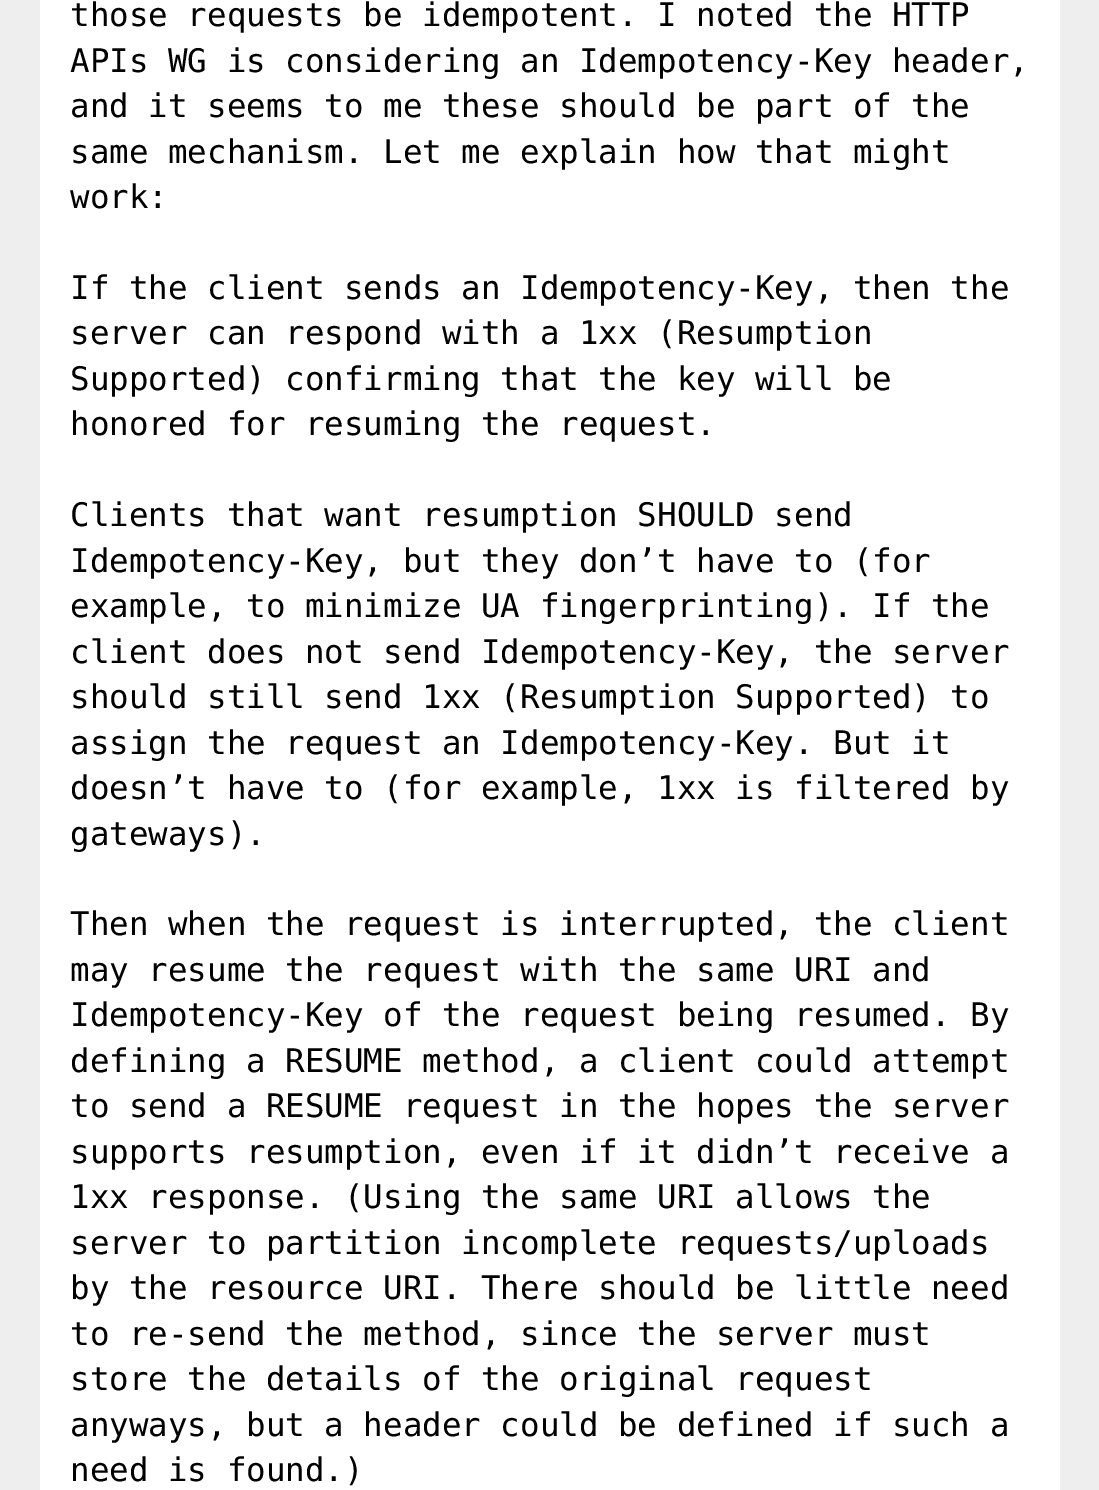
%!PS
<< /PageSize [1099 1490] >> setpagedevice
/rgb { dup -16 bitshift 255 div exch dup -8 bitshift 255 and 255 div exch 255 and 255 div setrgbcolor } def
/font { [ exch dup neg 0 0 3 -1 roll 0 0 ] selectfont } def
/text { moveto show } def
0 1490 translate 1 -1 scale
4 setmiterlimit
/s1 { /DejaVuSansMono-Regular 32.5 font 16#000000 rgb } def
16#EEEEEE rgb
0 0 1099 1490 rectfill
16#FFFFFF rgb
40 0 1020 1490 rectfill
s1
(those requests be idempotent. I noted the HTTP) 70 26 text
(APIs WG is considering an Idempotency-Key header,) 70 72 text
(and it seems to me these should be part of the) 70 117 text
(same mechanism. Let me explain how that might) 70 163 text
(work:) 70 208 text
(If the client sends an Idempotency-Key, then the) 70 299 text
(server can respond with a 1xx \(Resumption) 70 344 text
(Supported\) confirming that the key will be) 70 390 text
(honored for resuming the request.) 70 435 text
(Clients that want resumption SHOULD send) 70 526 text
(Idempotency-Key, but they don’t have to \(for) 70 572 text
(example, to minimize UA fingerprinting\). If the) 70 617 text
(client does not send Idempotency-Key, the server) 70 663 text
(should still send 1xx \(Resumption Supported\) to) 70 708 text
(assign the request an Idempotency-Key. But it) 70 754 text
(doesn’t have to \(for example, 1xx is filtered by) 70 799 text
(gateways\).) 70 845 text
(Then when the request is interrupted, the client) 70 935 text
(may resume the request with the same URI and) 70 981 text
(Idempotency-Key of the request being resumed. By) 70 1026 text
(defining a RESUME method, a client could attempt) 70 1072 text
(to send a RESUME request in the hopes the server) 70 1117 text
(supports resumption, even if it didn’t receive a) 70 1163 text
(1xx response. \(Using the same URI allows the) 70 1208 text
(server to partition incomplete requests/uploads) 70 1254 text
(by the resource URI. There should be little need) 70 1299 text
(to re-send the method, since the server must) 70 1345 text
(store the details of the original request) 70 1390 text
(anyways, but a header could be defined if such a) 70 1436 text
(need is found.\)) 70 1481 text
showpage
